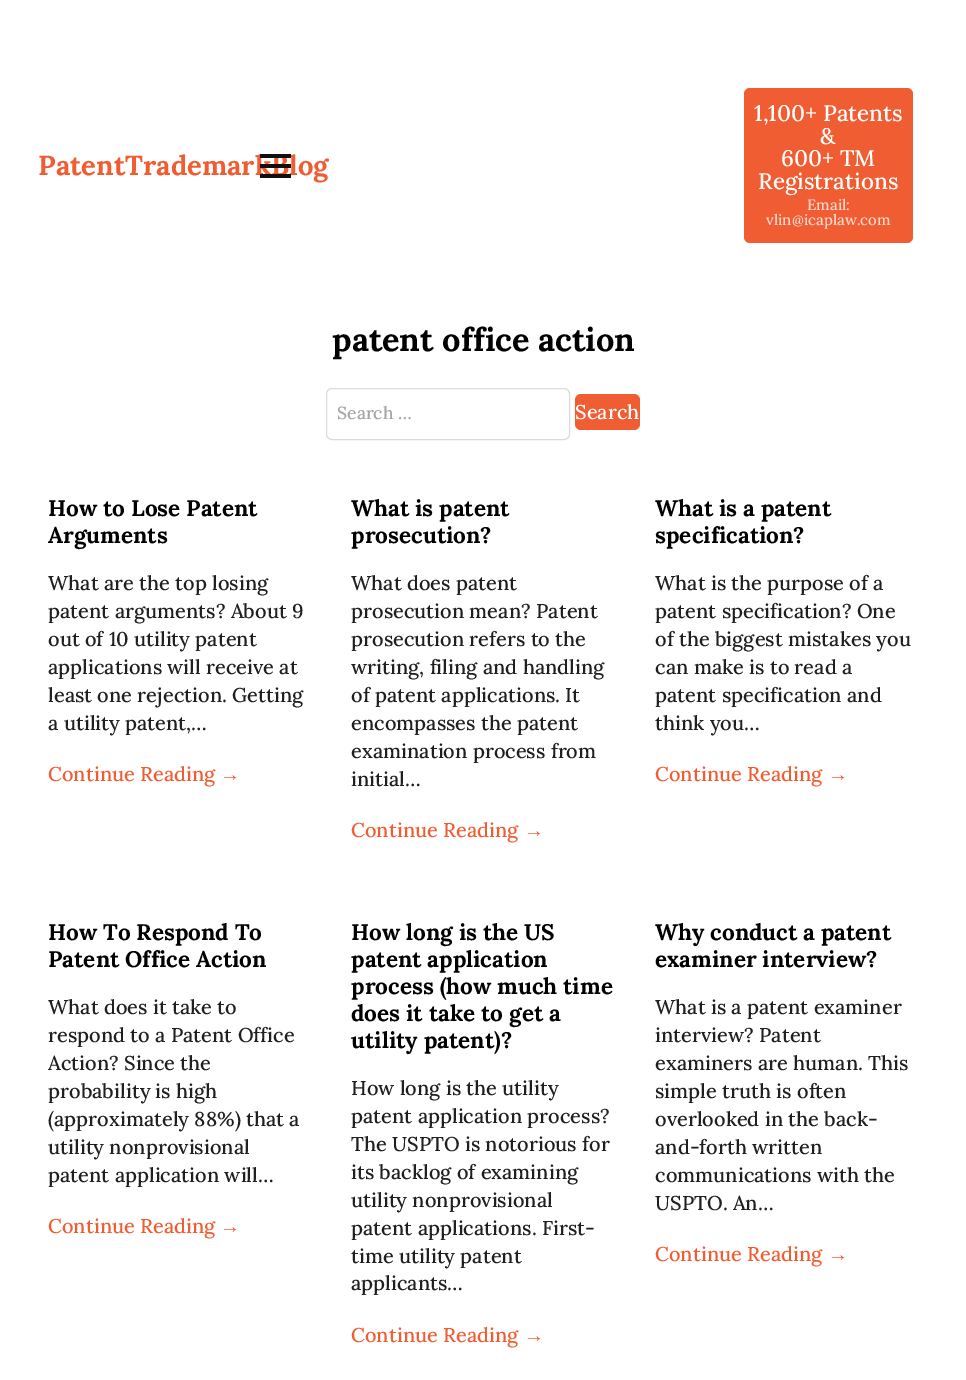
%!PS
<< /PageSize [966 1380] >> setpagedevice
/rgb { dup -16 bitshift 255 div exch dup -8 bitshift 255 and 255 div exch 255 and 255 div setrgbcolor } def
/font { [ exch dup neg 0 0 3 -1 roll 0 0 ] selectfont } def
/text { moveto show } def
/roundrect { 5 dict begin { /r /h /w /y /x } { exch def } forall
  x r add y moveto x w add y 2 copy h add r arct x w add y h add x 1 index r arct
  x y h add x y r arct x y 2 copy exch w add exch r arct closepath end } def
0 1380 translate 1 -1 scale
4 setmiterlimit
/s1 { /Lora-Bold 27.5 font 16#F15D32 rgb } def
/s2 { /Lora-Medium 22.5 font 16#FFFFFF rgb } def
/s3 { /Lora-Medium 15 font 16#FCD7CC rgb } def
/s4 { /Lora-Bold 32.5 font 16#000000 rgb } def
/s5 { /Lora-Medium 17.5 font 16#A4A4A4 rgb } def
/s6 { /Lora-Medium 20 font 16#FFFFFF rgb } def
/s7 { /Lora-Bold 22.5 font 16#000000 rgb } def
/s8 { /Lora-Medium 20 font 16#1F1F1F rgb } def
/s9 { /Lora-Medium 20 font 16#F15D32 rgb } def
/s10 { /LiberationSerif-Regular 20 font 16#F15D32 rgb } def
16#FFFFFF rgb
0 0 966 1380 rectfill
s1
(PatentTrademarkBlog) 38 175 text
744 88 169 155 6 roundrect fill
s2
(1,100+ Patents) 754 121 text
(&) 820 144 text
(600+ TM) 781 166 text
(Registrations) 758 189 text
s3
(Email:) 807 210 text
(vlin@icaplaw.com) 766 225 text
16#101010 rgb
260 154 31 4 rectfill
260 164 31 4 rectfill
260 174 31 4 rectfill
s4
(patent office action) 332 351 text
16#DBDBDB rgb
326.5 388.5 243 51 5.5 roundrect stroke
s5
(Search …) 337 419 text
16#F15D32 rgb
575 394 65 36 6 roundrect fill
s6
(Search) 575 419 text
s7
(How to Lose Patent) 48 516 text
(Arguments) 48 543 text
s8
(What are the top losing) 48 590 text
(patent arguments? About 9) 48 618 text
(out of 10 utility patent) 48 646 text
(applications will receive at) 48 674 text
(least one rejection. Getting) 48 702 text
(a utility patent,…) 48 730 text
s9
(Continue Reading) 48 781 text
s10
(→) 220 781 text
s7
(What is patent) 351 516 text
(prosecution?) 351 543 text
s8
(What does patent) 351 590 text
(prosecution mean? Patent) 351 618 text
(prosecution refers to the) 351 646 text
(writing, filing and handling) 351 674 text
(of patent applications. It) 351 702 text
(encompasses the patent) 351 730 text
(examination process from) 351 758 text
(initial…) 351 786 text
s9
(Continue Reading) 351 837 text
s10
(→) 524 837 text
s7
(What is a patent) 655 516 text
(specification?) 655 543 text
s8
(What is the purpose of a) 655 590 text
(patent specification? One) 655 618 text
(of the biggest mistakes you) 655 646 text
(can make is to read a) 655 674 text
(patent specification and) 655 702 text
(think you…) 655 730 text
s9
(Continue Reading) 655 781 text
s10
(→) 828 781 text
s7
(How To Respond To) 48 940 text
(Patent Office Action) 48 967 text
s8
(What does it take to) 48 1014 text
(respond to a Patent Office) 48 1042 text
(Action? Since the) 48 1070 text
(probability is high) 48 1098 text
(\(approximately 88%\) that a) 48 1126 text
(utility nonprovisional) 48 1154 text
(patent application will…) 48 1182 text
s9
(Continue Reading) 48 1233 text
s10
(→) 220 1233 text
s7
(How long is the US) 351 940 text
(patent application) 351 967 text
(process \(how much time) 351 994 text
(does it take to get a) 351 1021 text
(utility patent\)?) 351 1048 text
s8
(How long is the utility) 351 1095 text
(patent application process?) 351 1123 text
(The USPTO is notorious for) 351 1151 text
(its backlog of examining) 351 1179 text
(utility nonprovisional) 351 1207 text
(patent applications. First-) 351 1235 text
(time utility patent) 351 1263 text
(applicants…) 351 1290 text
s9
(Continue Reading) 351 1342 text
s10
(→) 524 1342 text
s7
(Why conduct a patent) 655 940 text
(examiner interview?) 655 967 text
s8
(What is a patent examiner) 655 1014 text
(interview? Patent) 655 1042 text
(examiners are human. This) 655 1070 text
(simple truth is often) 655 1098 text
(overlooked in the back-) 655 1126 text
(and-forth written) 655 1154 text
(communications with the) 655 1182 text
(USPTO. An…) 655 1210 text
s9
(Continue Reading) 655 1261 text
s10
(→) 828 1261 text
showpage
